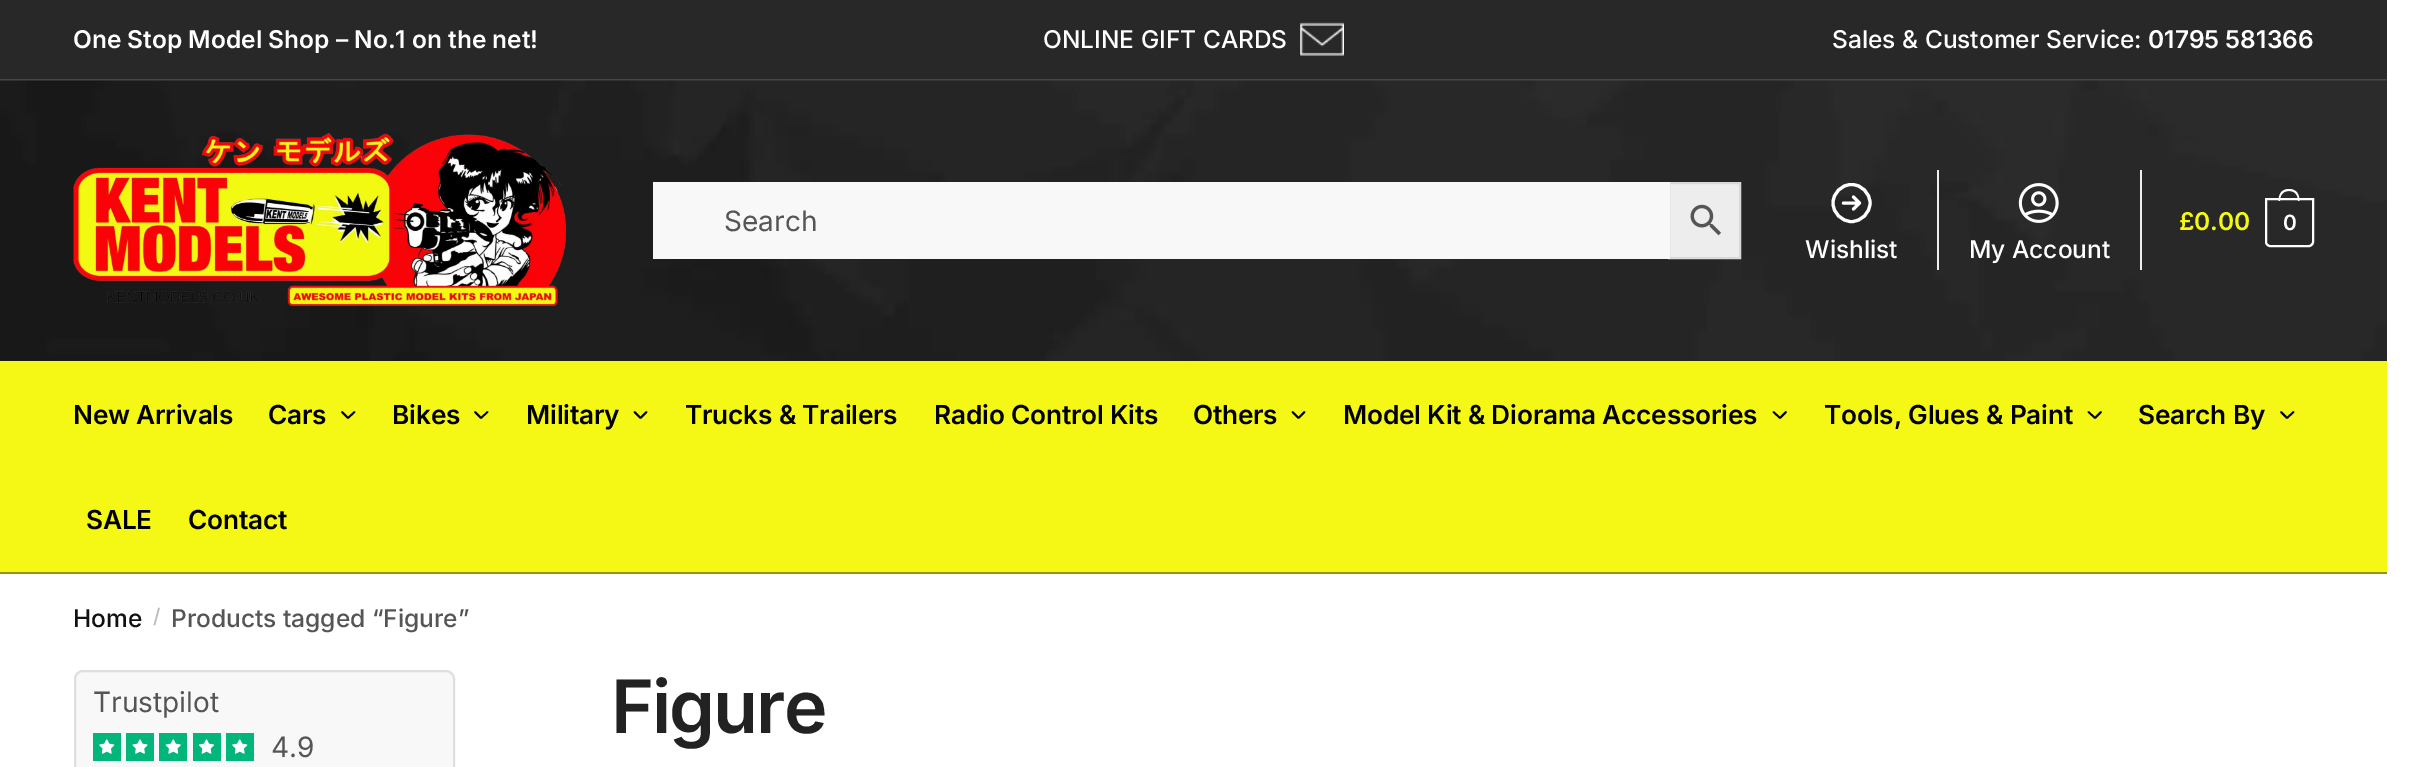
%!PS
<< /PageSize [2412 767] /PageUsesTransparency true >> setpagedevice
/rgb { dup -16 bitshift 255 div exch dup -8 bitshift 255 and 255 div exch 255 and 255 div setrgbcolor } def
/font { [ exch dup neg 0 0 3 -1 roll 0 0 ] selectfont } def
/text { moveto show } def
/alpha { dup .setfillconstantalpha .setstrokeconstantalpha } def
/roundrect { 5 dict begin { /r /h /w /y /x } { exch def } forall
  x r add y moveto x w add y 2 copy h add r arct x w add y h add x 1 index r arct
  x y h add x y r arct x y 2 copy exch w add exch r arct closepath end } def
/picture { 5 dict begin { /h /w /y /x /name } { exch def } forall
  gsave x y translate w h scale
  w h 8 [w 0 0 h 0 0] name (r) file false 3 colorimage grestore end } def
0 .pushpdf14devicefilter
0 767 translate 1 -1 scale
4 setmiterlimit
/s1 { /Inter-SemiBold 24.5 font 16#FFFFFF rgb } def
/s2 { /Inter-Medium 24.5 font 16#FFFFFF rgb } def
/s3 { /Inter-Regular 28 font 16#555555 rgb } def
/s4 { /Inter-Medium 24.5 font 16#111111 rgb } def
/s5 { /Inter-Medium 20 font 16#BBBBBB rgb } def
/s6 { /Inter-Medium 24.5 font 16#555555 rgb } def
16#FFFFFF rgb
0 0 2412 767 rectfill
16#282828 rgb
0 0 2387 79 rectfill
16#464646 rgb
0 79 2387 2 rectfill
s1
(One Stop Model Shop – No.1 on the net!) 73 48 text
s2
(ONLINE GIFT CARDS) 1043 48 text
(pic1.raw) 1300 22 44 34 picture
(Sales & Customer Service:) 1832 48 text
s1
(01795 581366) 2148 48 text
16#222222 rgb
0 360 2387 1 rectfill
(pic2.raw) 0 80 2387 281 picture
(pic3.raw) 73 133 493 174 picture
16#EDEDED rgb
1669 183 moveto 1740 183 lineto 1740 258 lineto 1669 258 lineto closepath gsave fill grestore
16#D8D8D8 rgb
2 setlinewidth
stroke
16#F8F8F8 rgb
653 182 1017 77 rectfill
s3
(Search) 724 231 text
(pic4.raw) 1690 204 31 32 picture
/Inter-SemiBold 24.5 font
16#F5F815 rgb
2179 230 moveto -0.2 0 (£0.00) ashow
16#FFFFFF rgb
2266 199 moveto 2313 199 lineto 2313 242 lineto 2313 244 2311 246 2309 246 curveto 2270 246 lineto 2268 246 2266 244 2266 242 curveto closepath stroke
2289 189 moveto 2296.5 189 2299.5 194.5 2299.5 201 curveto 2278.5 201 lineto 2278.5 194.5 2281.5 189 2289 189 curveto closepath 2289 191 moveto 2295.5 191 2298 195.5 2298 201 curveto 2280 201 lineto 2280 195.5 2282.5 191 2289 191 curveto closepath eofill
/Inter-SemiBold 21 font
2283 230 moveto -1 0 (0) ashow
3.1 setlinewidth
1 setlinecap
1 setlinejoin
1853.5 197 moveto 1859.5 203 lineto 1859.5 203 moveto 1853.5 209 lineto 1859.5 203 moveto 1843.5 203 lineto 1870 203 moveto 1870 213 1861.5 221.5 1851.5 221.5 curveto 1841.5 221.5 1833 213 1833 203 curveto 1833 193 1841.5 184.5 1851.5 184.5 curveto 1861.5 184.5 1870 193 1870 203 curveto closepath stroke
s2
(Wishlist) 1805 258 text
16#EEEEEE rgb
2140 170 2 100 rectfill
1937 170 2 100 rectfill
(pic5.raw) 2018 183 41 40 picture
s2
(My Account) 1969 258 text
16#F5F815 rgb
0 361 2387 211 rectfill
16#93950D rgb
0 572 2387 2 rectfill
/Inter-SemiBold 26.25 font
16#000000 rgb
73 424 moveto -0.2 0 (New Arrivals) ashow
268 424 moveto -0.2 0 (Cars) ashow
1.8 setlinewidth
354.5 412 moveto 348 418 lineto 342 412 lineto stroke
392 424 moveto -0.2 0 (Bikes) ashow
487.5 412 moveto 481 418 lineto 475 412 lineto stroke
526 424 moveto -0.2 0 (Military) ashow
646.5 412 moveto 640.5 418 lineto 634.5 412 lineto stroke
685 424 moveto -0.2 0 (Trucks & Trailers) ashow
934 424 moveto -0.2 0 (Radio Control Kits) ashow
1193 424 moveto -0.2 0 (Others) ashow
1304.5 412 moveto 1298.5 418 lineto 1292.5 412 lineto stroke
1343 424 moveto -0.2 0 (Model Kit & Diorama Accessories) ashow
1786 412 moveto 1780 418 lineto 1773.5 412 lineto stroke
1824 424 moveto -0.2 0 (Tools, Glues & Paint) ashow
2101 412 moveto 2095 418 lineto 2088.5 412 lineto stroke
2138 424 moveto -0.2 0 (Search By) ashow
2293.5 412 moveto 2287 418 lineto 2281 412 lineto stroke
86 529 moveto -0.2 0 (SALE) ashow
188 529 moveto -0.2 0 (Contact) ashow
s4
(Home) 73 627 text
s5
(/) 153 623 text
s6
(Products tagged “Figure”) 171 627 text
16#F8F8F8 rgb
74 670 381 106 9 roundrect fill
0.1 alpha
16#000000 rgb
2 setlinewidth
0 setlinecap
0 setlinejoin
75 671 379 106 8 roundrect stroke
1 alpha
s3
(Trustpilot) 93 712 text
16#00B67A rgb
93 733 28 28 rectfill
(pic6.raw) 99 739 16 15 picture
126 733 28 28 rectfill
(pic7.raw) 132 739 16 15 picture
159 733 28 28 rectfill
(pic8.raw) 165 739 16 15 picture
193 733 28 28 rectfill
(pic9.raw) 199 739 15 15 picture
226 733 28 28 rectfill
(pic6.raw) 232 739 16 15 picture
s3
(4.9) 271 757 text
/Inter-SemiBold 73.5 font
16#222222 rgb
611 733 moveto -2 0 (Figure) ashow
.poppdf14devicefilter showpage
